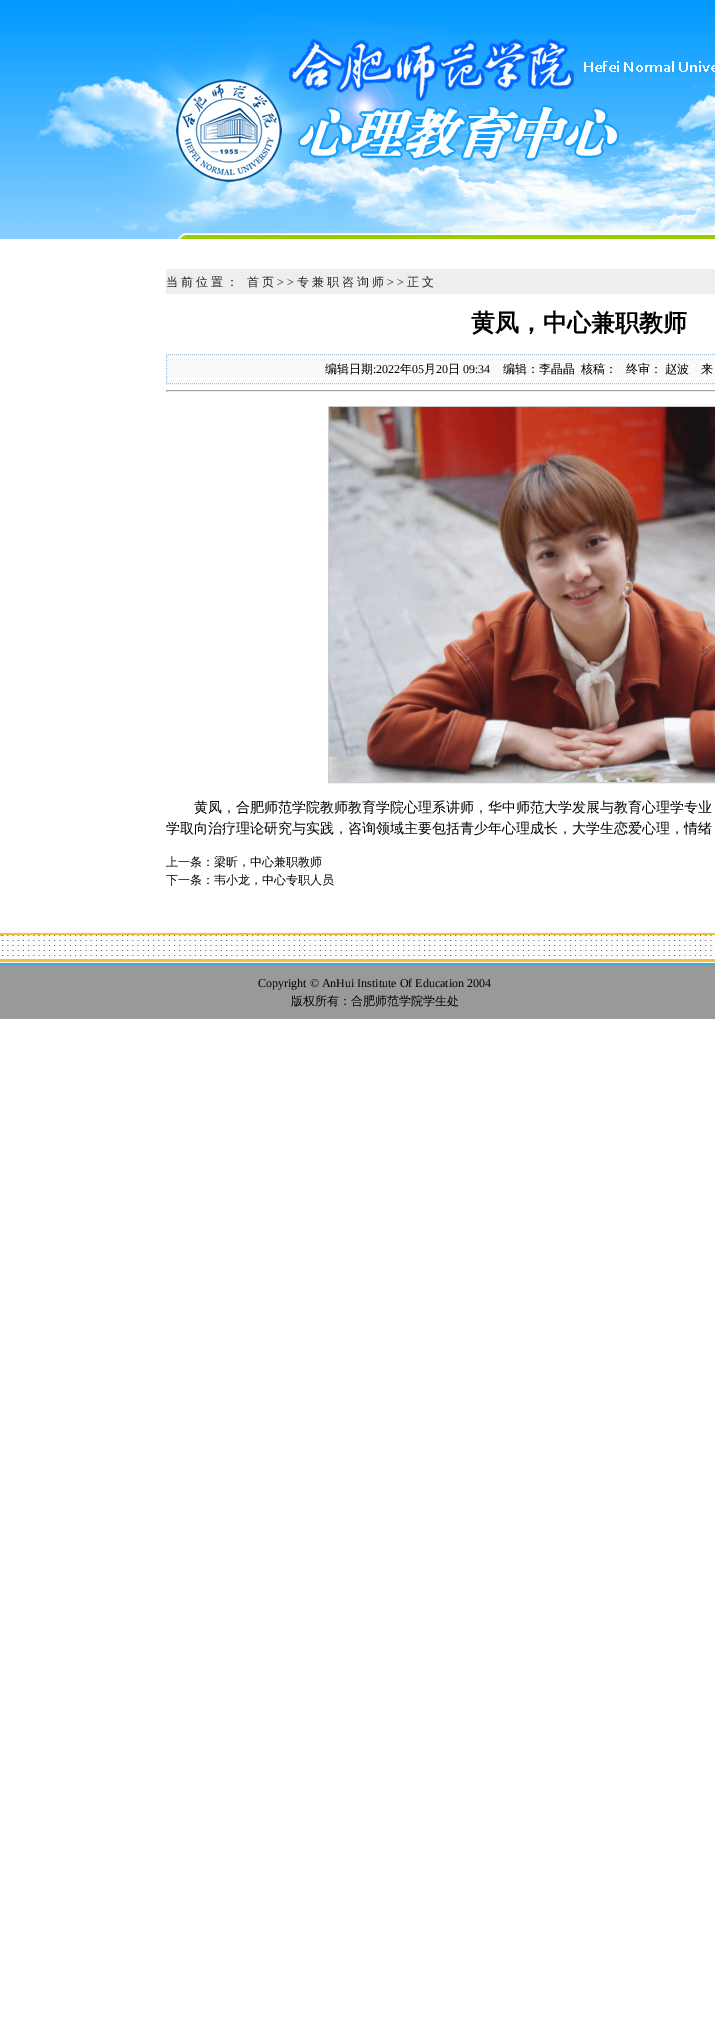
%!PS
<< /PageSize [715 2044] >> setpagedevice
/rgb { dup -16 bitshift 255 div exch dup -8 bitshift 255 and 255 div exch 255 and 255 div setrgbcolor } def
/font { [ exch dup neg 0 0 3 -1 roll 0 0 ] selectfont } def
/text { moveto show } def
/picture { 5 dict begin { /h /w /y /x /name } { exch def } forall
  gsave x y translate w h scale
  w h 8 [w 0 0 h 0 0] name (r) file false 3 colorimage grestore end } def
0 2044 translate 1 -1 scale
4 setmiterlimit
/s1 { /WenQuanYiZenHei-Bold 24 font 16#000000 rgb } def
/s2 { /WenQuanYiZenHei-Medium 12 font 16#000000 rgb } def
/s3 { /LiberationSerif-Regular 12 font 16#000000 rgb } def
/s4 { /WenQuanYiZenHei-Medium 14 font 16#000000 rgb } def
16#FFFFFF rgb
0 0 715 2044 rectfill
(pic1.raw) 0 0 649 239 picture
(pic2.raw) 649 0 66 239 picture
16#EEEEEE rgb
166 269 549 25 rectfill
/WenQuanYiZenHei-Medium 12 font
16#222222 rgb
166 286 moveto 3 0 (当前位置：) ashow
247 286 moveto 3 0 (首页) ashow
/LiberationSerif-Regular 12 font
277 286 moveto 3 0 (>>) ashow
/WenQuanYiZenHei-Medium 12 font
297 286 moveto 3 0 (专兼职咨询师) ashow
/LiberationSerif-Regular 12 font
387 286 moveto 3 0 (>>) ashow
/WenQuanYiZenHei-Medium 12 font
407 286 moveto 3 0 (正文) ashow
s1
(黄凤，中心兼职教师) 471 331 text
16#FAFAFA rgb
166 354 549 30 rectfill
16#A4C2D7 rgb
[1 1] 0 setdash
166 354.5 moveto 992 354.5 lineto stroke
166 383.5 moveto 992 383.5 lineto stroke
166.5 354 moveto 166.5 384 lineto stroke
s2
(编辑日期) 325 373 text
s3
(:2022) 373 373 text
s2
(年) 400 373 text
s3
(05) 412 373 text
s2
(月) 424 373 text
s3
(20) 436 373 text
s2
(日) 448 373 text
s3
(09:34) 463 373 text
s2
(编辑：李晶晶) 503 373 text
(核稿：) 581 373 text
(终审：) 626 373 text
(赵波) 665 373 text
(来) 701 373 text
16#9F9F9F rgb
166 390 549 1 rectfill
16#EEEEEE rgb
166 391 549 1 rectfill
16#9F9F9F rgb
166 390 1 2 rectfill
16#CCCCCC rgb
[] 0 setdash
328.5 406.5 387 376 rectstroke
(pic3.raw) 329 407 386 375 picture
s4
(黄凤，合肥师范学院教师教育学院心理系讲师，华中师范大学发展与教育心理学专业) 194 812 text
(学取向治疗理论研究与实践，咨询领域主要包括青少年心理成长，大学生恋爱心理，情绪) 166 833 text
s2
(上一条：梁昕，中心兼职教师) 166 866 text
(下一条：韦小龙，中心专职人员) 166 884 text
(pic4.raw) 0 932 715 31 picture
16#42A7D2 rgb
0 963 715 2 rectfill
16#999999 rgb
0 965 715 54 rectfill
s3
(Copyright © AnHui Institute Of Education 2004) 258 987 text
s2
(版权所有：合肥师范学院学生处) 291 1005 text
showpage
